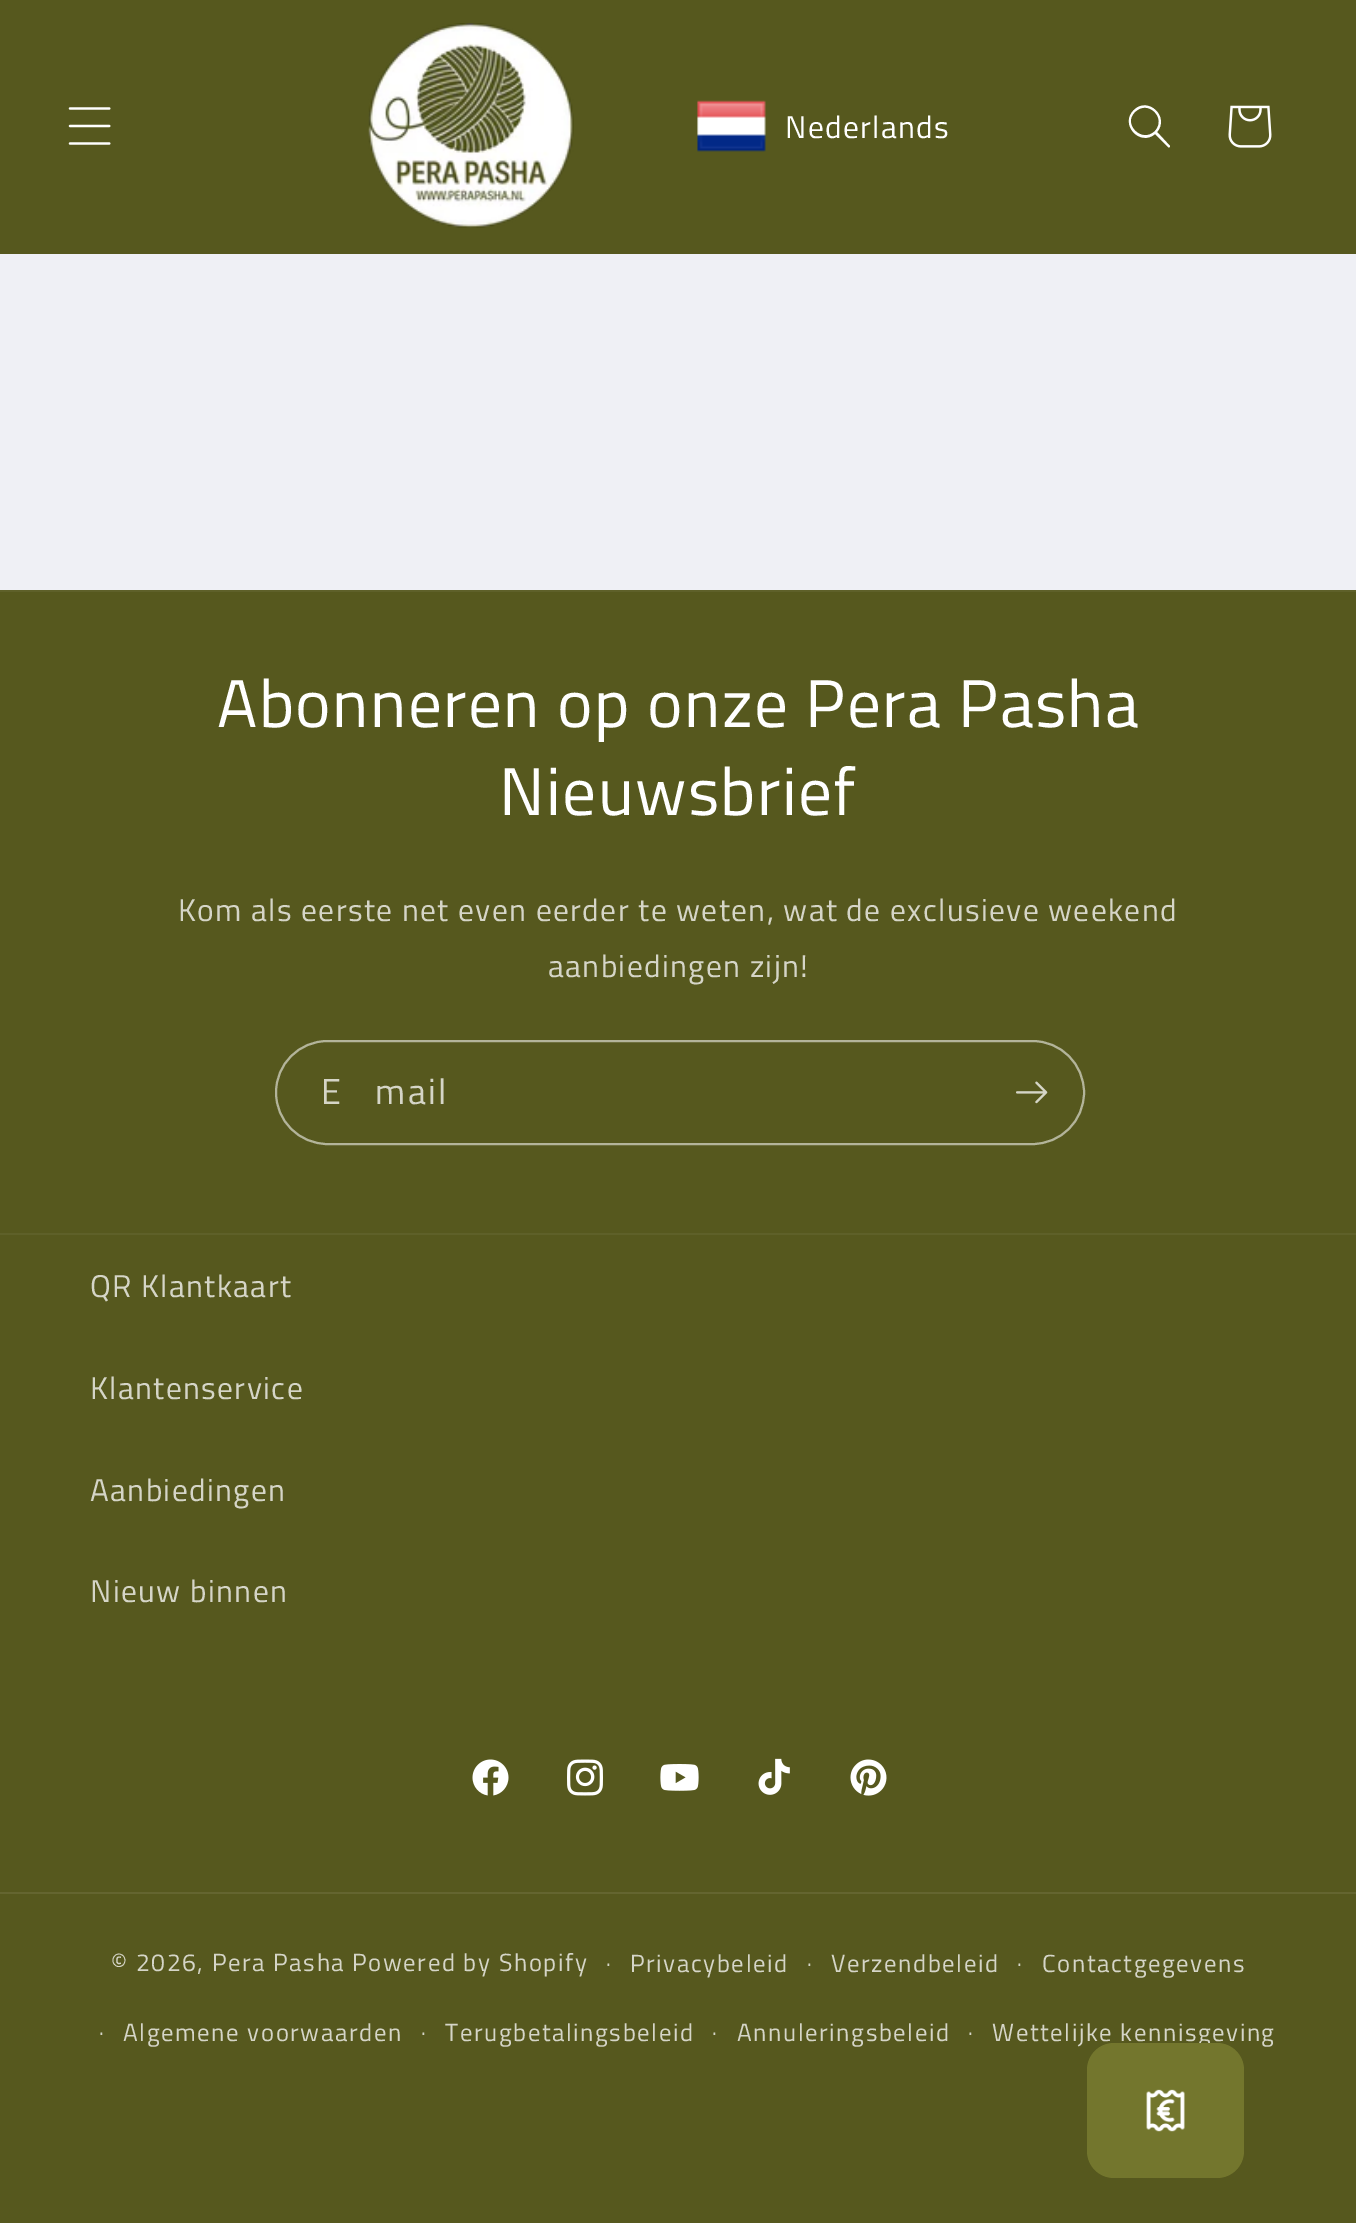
%!PS
<< /PageSize [1356 2223] >> setpagedevice
/rgb { dup -16 bitshift 255 div exch dup -8 bitshift 255 and 255 div exch 255 and 255 div setrgbcolor } def
/font { [ exch dup neg 0 0 3 -1 roll 0 0 ] selectfont } def
/roundrect { 5 dict begin { /r /h /w /y /x } { exch def } forall
  x r add y moveto x w add y 2 copy h add r arct x w add y h add x 1 index r arct
  x y h add x y r arct x y 2 copy exch w add exch r arct closepath end } def
/picture { 5 dict begin { /h /w /y /x /name } { exch def } forall
  gsave x y translate w h scale
  w h 8 [w 0 0 h 0 0] name (r) file false 3 colorimage grestore end } def
0 2223 translate 1 -1 scale
4 setmiterlimit
16#EFF0F5 rgb
0 0 1356 2223 rectfill
16#56581E rgb
0 0 1356 254 rectfill
(pic1.raw) 68 107 43 38 picture
(pic2.raw) 368 23 206 205 picture
(pic3.raw) 697 100 69 52 picture
/TitilliumWeb-Regular 31.5 font
16#FFFFFF rgb
785 138 moveto 1.35 0 (Nederlands) ashow
1155 131 moveto 1142 144 1122 124 1135 112 curveto 1148 99 1167 118 1155 131 curveto 1155 134 moveto 1140 147 1119 124 1134 110 curveto 1148 96 1170 117 1157 132 curveto 1170 146 lineto 1170 147 1169 148 1168 147 curveto closepath eofill
(pic4.raw) 1228 105 44 43 picture
16#56581E rgb
0 592 1356 641 rectfill
16#5E6029 rgb
0 590 1356 2 rectfill
0 1233 1356 2 rectfill
/TitilliumWeb-Regular 67.5 font
16#FFFFFF rgb
217 727 moveto 1.35 0 (Abonneren op onze Pera Pasha) ashow
499 815 moveto 1.35 0 (Nieuwsbrief) ashow
/TitilliumWeb-Regular 31.5 font
16#D5D5C7 rgb
178 921 moveto 1.35 0 (Kom als eerste net even eerder te weten, wat de exclusieve weekend) ashow
548 977 moveto 1.35 0 (aanbiedingen zijn!) ashow
16#B3B49A rgb
2 setlinewidth
276 1041 808 103 51.5 roundrect stroke
/TitilliumWeb-Regular 36 font
16#D5D5C7 rgb
321 1104 moveto 2.25 0 (E‑mail) ashow
(pic5.raw) 1016 1081 32 23 picture
16#56581E rgb
0 1235 1356 988 rectfill
/TitilliumWeb-Regular 31.5 font
16#D5D5C7 rgb
90 1297 moveto 1.35 0 (QR Klantkaart) ashow
90 1399 moveto 1.35 0 (Klantenservice) ashow
90 1501 moveto 1.35 0 (Aanbiedingen) ashow
90 1602 moveto 1.35 0 (Nieuw binnen) ashow
(pic6.raw) 472 1759 37 37 picture
(pic7.raw) 567 1759 36 37 picture
(pic8.raw) 660 1764 39 27 picture
(pic9.raw) 758 1758 32 37 picture
(pic10.raw) 850 1759 37 37 picture
16#646530 rgb
0 1892 1356 2 rectfill
/TitilliumWeb-Regular 24.75 font
16#D5D5C7 rgb
111 1971 moveto 1.6 0 (© 2026, Pera Pasha) ashow
352 1971 moveto 1.6 0 (Powered by Shopify) ashow
/TitilliumWeb-Regular 22 font
606 1971 moveto 1.6 0 (·) ashow
/TitilliumWeb-Regular 24.75 font
630 1972 moveto 1.6 0 (Privacybeleid) ashow
/TitilliumWeb-Regular 22 font
807 1971 moveto 1.6 0 (·) ashow
/TitilliumWeb-Regular 24.75 font
831 1972 moveto 1.6 0 (Verzendbeleid) ashow
/TitilliumWeb-Regular 22 font
1017 1971 moveto 1.6 0 (·) ashow
/TitilliumWeb-Regular 24.75 font
1042 1972 moveto 1.6 0 (Contactgegevens) ashow
/TitilliumWeb-Regular 22 font
99 2040 moveto 1.6 0 (·) ashow
/TitilliumWeb-Regular 24.75 font
123 2041 moveto 1.6 0 (Algemene voorwaarden) ashow
/TitilliumWeb-Regular 22 font
421 2040 moveto 1.6 0 (·) ashow
/TitilliumWeb-Regular 24.75 font
445 2041 moveto 1.6 0 (Terugbetalingsbeleid) ashow
/TitilliumWeb-Regular 22 font
712 2040 moveto 1.6 0 (·) ashow
/TitilliumWeb-Regular 24.75 font
737 2041 moveto 1.6 0 (Annuleringsbeleid) ashow
/TitilliumWeb-Regular 22 font
968 2040 moveto 1.6 0 (·) ashow
/TitilliumWeb-Regular 24.75 font
992 2041 moveto 1.6 0 (Wettelijke kennisgeving) ashow
16#73762D rgb
1087 2043 157 135 27 roundrect fill
(pic11.raw) 1146 2089 39 43 picture
showpage
